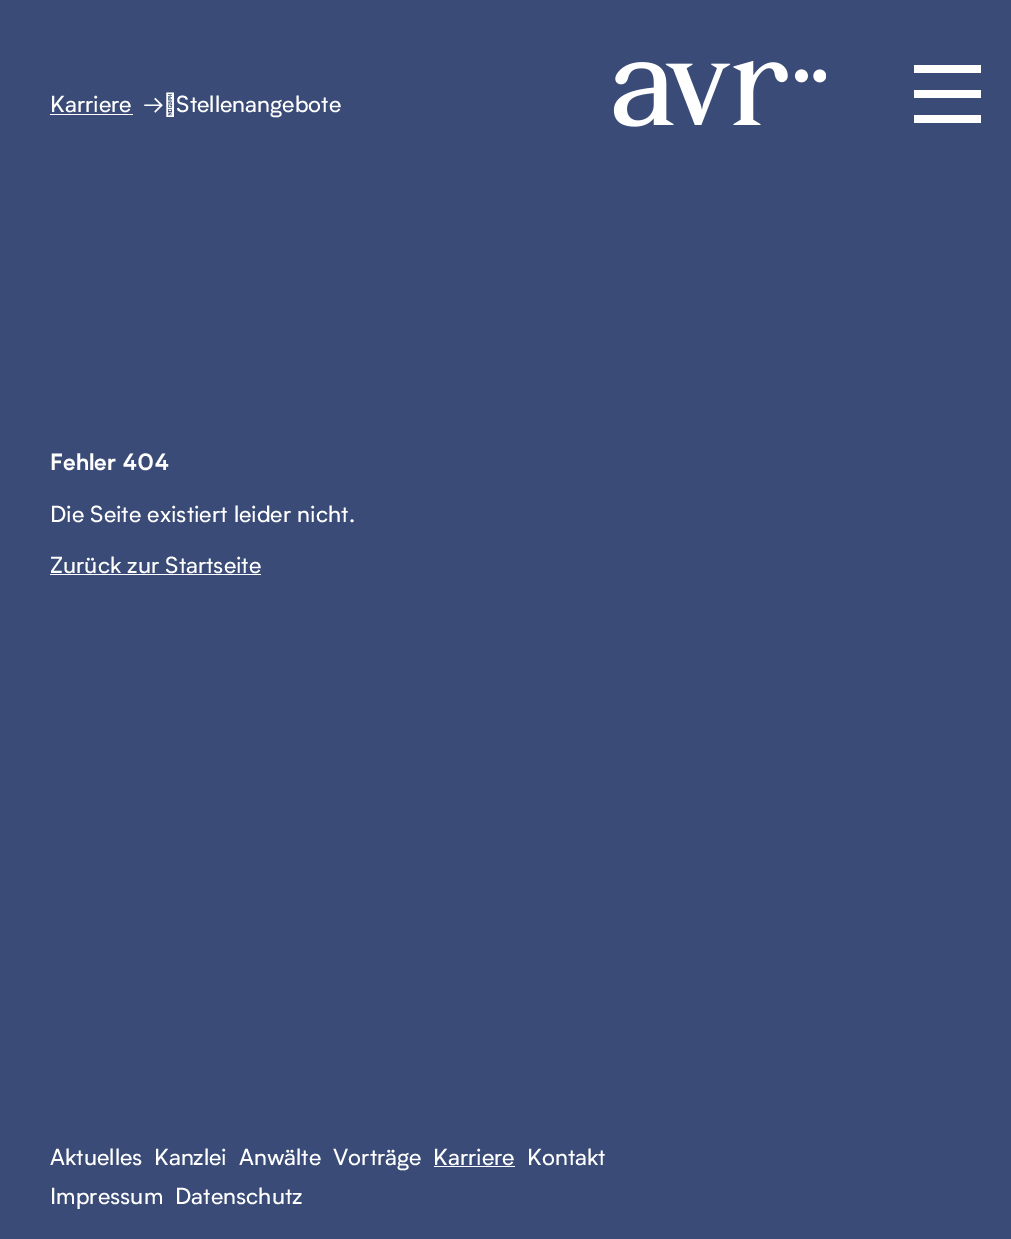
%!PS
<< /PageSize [1011 1239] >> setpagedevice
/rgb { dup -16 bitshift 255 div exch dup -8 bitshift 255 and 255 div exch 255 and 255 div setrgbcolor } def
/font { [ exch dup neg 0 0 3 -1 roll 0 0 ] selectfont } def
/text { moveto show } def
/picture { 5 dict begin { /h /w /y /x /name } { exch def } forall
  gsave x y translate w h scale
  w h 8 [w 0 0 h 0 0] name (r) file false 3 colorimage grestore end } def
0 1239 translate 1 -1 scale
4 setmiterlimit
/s1 { /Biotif-Regular 22.5 font 16#FFFFFF rgb } def
/s2 { /Biotif-Bold 22.5 font 16#FFFFFF rgb } def
16#394B76 rgb
0 0 1011 1239 rectfill
s1
(Karriere) 50 112 text
50 114 83 1 rectfill
(→ Stellenangebote) 143 112 text
(pic1.raw) 613 60 213 67 picture
914 65 67 8 rectfill
914 90 67 8 rectfill
914 115 67 8 rectfill
s2
(Fehler 404) 50 470 text
s1
(Die Seite existiert leider nicht.) 50 522 text
(Zurück zur Startseite) 50 573 text
50 574 211 1 rectfill
(Aktuelles) 50 1165 text
(Kanzlei) 154 1165 text
(Anwälte) 239 1165 text
(Vorträge) 333 1165 text
(Karriere) 433 1165 text
434 1166 81 1 rectfill
(Kontakt) 527 1165 text
(Impressum) 50 1204 text
(Datenschutz) 175 1204 text
showpage
